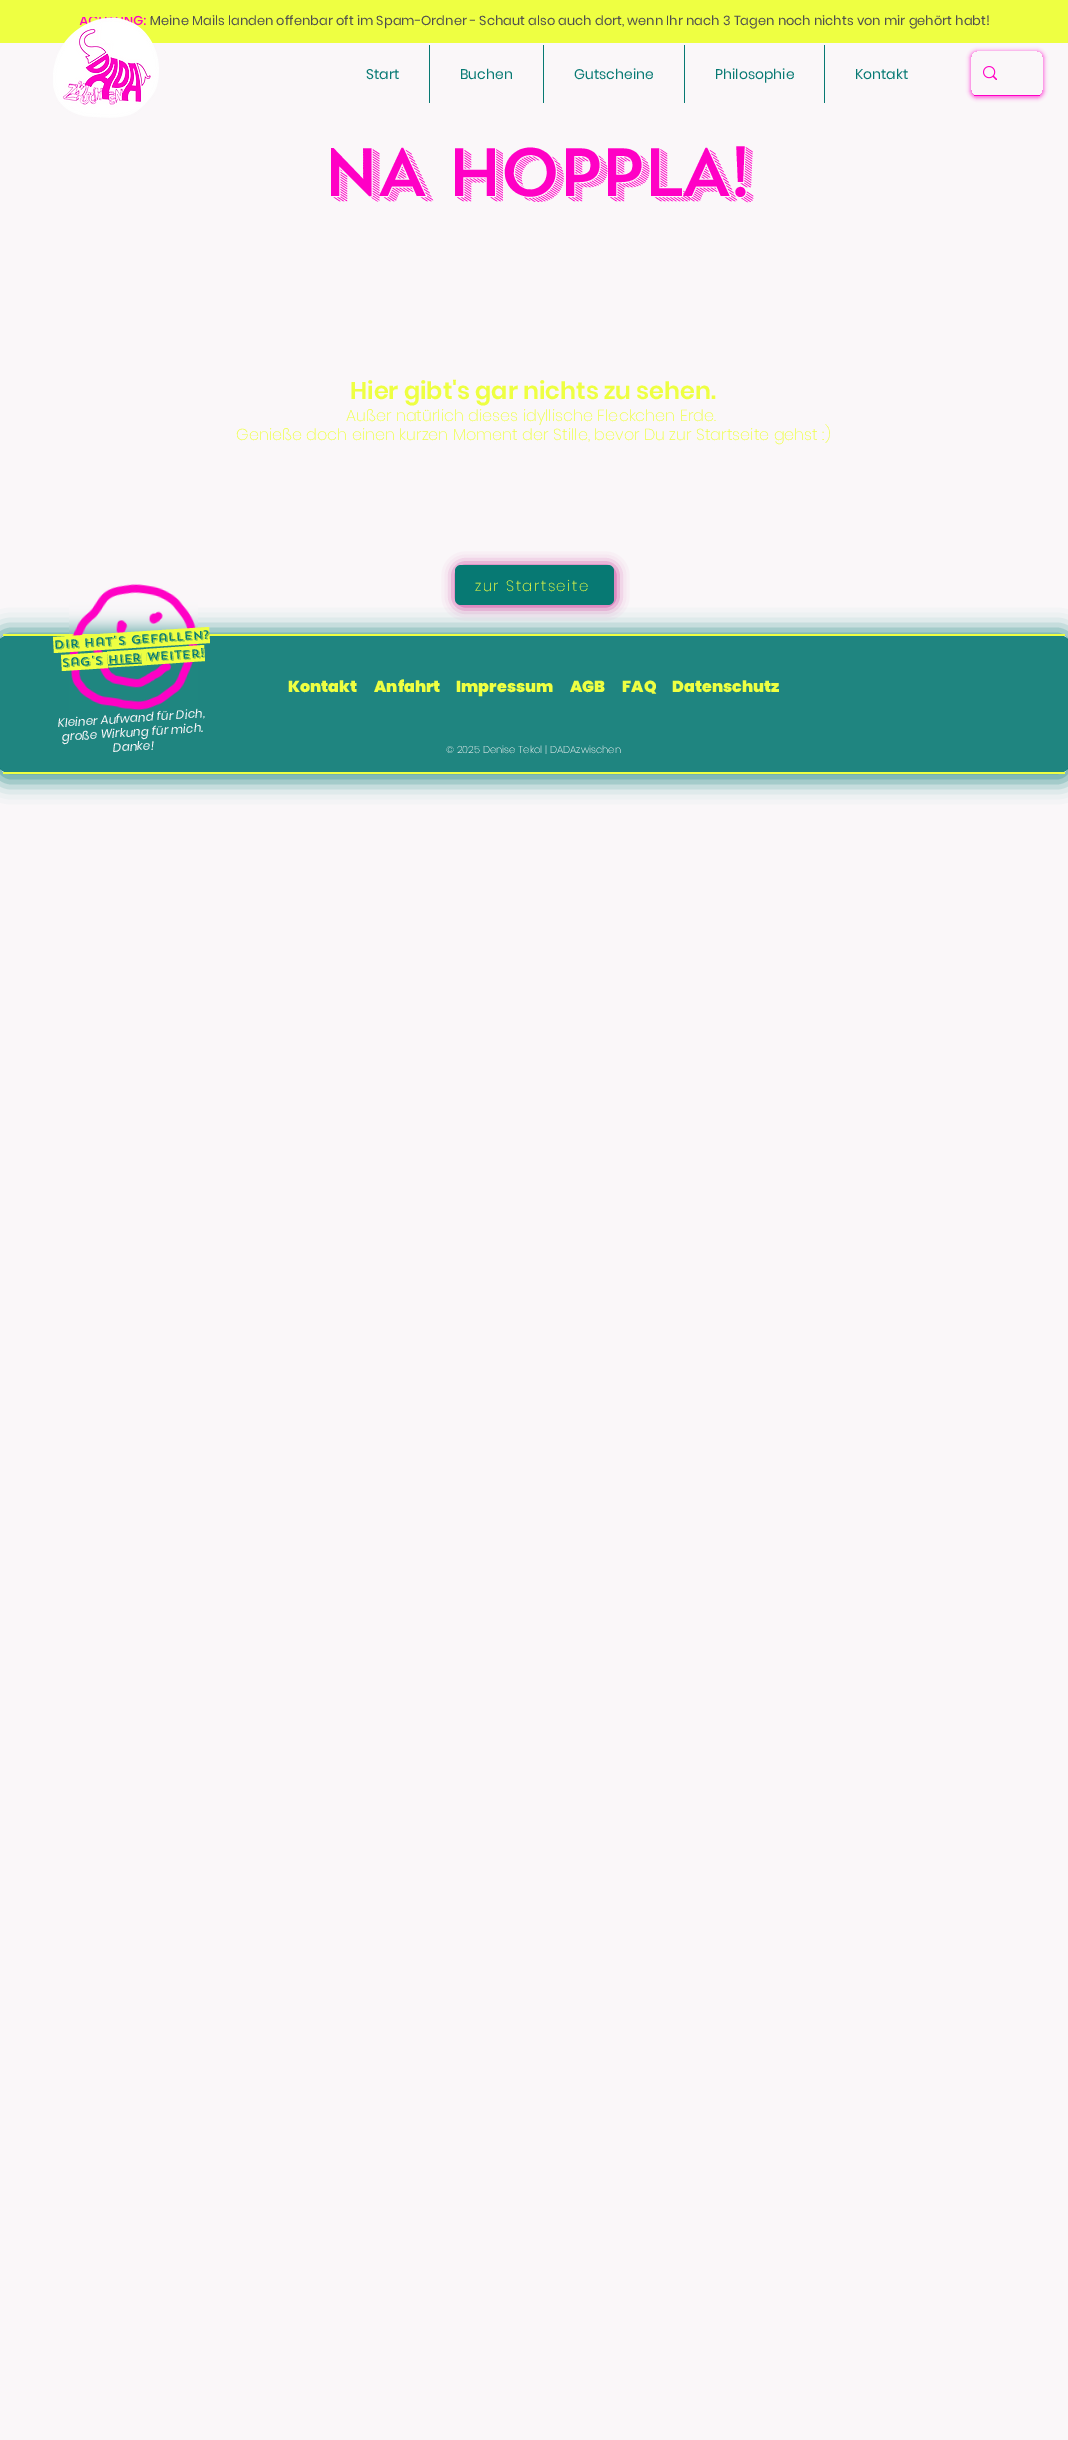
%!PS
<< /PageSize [1068 2440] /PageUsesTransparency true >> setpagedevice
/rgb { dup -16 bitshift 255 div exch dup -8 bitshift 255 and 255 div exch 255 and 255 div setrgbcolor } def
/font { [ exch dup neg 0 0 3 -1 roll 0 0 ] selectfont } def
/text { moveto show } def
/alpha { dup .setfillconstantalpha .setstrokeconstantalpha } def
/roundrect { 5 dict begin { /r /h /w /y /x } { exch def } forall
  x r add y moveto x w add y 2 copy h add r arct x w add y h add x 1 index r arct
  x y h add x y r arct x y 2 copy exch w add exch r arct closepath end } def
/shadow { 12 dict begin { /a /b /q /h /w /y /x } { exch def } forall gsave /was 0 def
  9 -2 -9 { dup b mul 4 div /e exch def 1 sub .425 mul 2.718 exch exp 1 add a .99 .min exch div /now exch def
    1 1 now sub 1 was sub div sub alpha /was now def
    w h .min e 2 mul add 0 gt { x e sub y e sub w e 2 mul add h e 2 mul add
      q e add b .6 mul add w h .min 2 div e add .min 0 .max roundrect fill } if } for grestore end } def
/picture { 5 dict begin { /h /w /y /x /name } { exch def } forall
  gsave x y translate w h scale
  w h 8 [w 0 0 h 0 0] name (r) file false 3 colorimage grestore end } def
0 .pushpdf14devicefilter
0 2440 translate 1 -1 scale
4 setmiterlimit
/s1 { /Poppins-Medium 13 font 16#FF00C5 rgb } def
/s2 { /Poppins-Regular 13 font 16#4F4E4F rgb } def
/s3 { /Poppins-Regular 14 font 16#077973 rgb } def
/s4 { /Poppins-SemiBold 24 font 16#EEFF42 rgb } def
/s5 { /Poppins-ExtraLight 16 font 16#EEFF42 rgb } def
/s6 { /Poppins-Black 16 font 16#EEFF42 rgb } def
/s7 { /Poppins-ExtraLight 10 font 16#FAF7F9 rgb } def
16#FAF7F9 rgb
0 0 1068 2440 rectfill
16#EEFF42 rgb
0 0 1068 43 rectfill
s1
(G:) 133 25 text
s2
(Meine Mails landen offenbar oft im Spam-Ordner - Schaut also auch dort, wenn Ihr nach 3 Tagen noch nichts von mir gehört habt!) 150 25 text
(pic1.raw) 53 17 106 101 picture
s3
(Start) 366 79 text
429 45 1 58 rectfill
(Buchen) 460 79 text
543 45 1 58 rectfill
(Gutscheine) 574 79 text
684 45 1 58 rectfill
(Philosophie) 715 79 text
824 45 1 58 rectfill
(Kontakt) 855 79 text
gsave
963 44 moveto 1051 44 lineto 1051 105 lineto 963 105 lineto closepath 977 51 moveto 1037 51 lineto 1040.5 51 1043 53.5 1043 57 curveto 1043 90 lineto 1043 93.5 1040.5 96 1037 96 curveto 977 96 lineto 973.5 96 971 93.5 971 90 curveto 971 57 lineto 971 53.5 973.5 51 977 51 curveto closepath eoclip newpath
16#FF00C5 rgb
970 51 74 47 7 2 0.6 shadow
grestore
16#FF00C5 rgb
974 95 66 1 rectfill
(pic2.raw) 983 66 14 14 picture
/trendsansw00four-Medium 68 font
321 196 moveto -6.75 0 (NA HOPPLA!) ashow
s4
(Hier gibt's gar nichts zu sehen.) 350 399 text
s5
(Außer natürlich dieses idyllische Fleckchen Erde.) 346 421 text
(Genieße doch einen kurzen Moment der Stille, bevor Du zur Startseite gehst :\)) 236 440 text
16#BF1A88 rgb
456 566 159 40 6 6.5 1 shadow
16#077973 rgb
455 565 159 40 6 roundrect fill
/Poppins-ExtraLight 15 font
16#EEFF42 rgb
475 591 moveto 1.5 0 (zur Startseite) ashow
gsave
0 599 moveto 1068 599 lineto 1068 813 lineto 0 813 lineto closepath 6 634 moveto 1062 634 lineto 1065.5 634 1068 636.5 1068 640 curveto 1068 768 lineto 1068 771.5 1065.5 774 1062 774 curveto 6 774 lineto 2.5 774 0 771.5 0 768 curveto 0 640 lineto 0 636.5 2.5 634 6 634 curveto closepath eoclip newpath
16#077973 rgb
-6 630 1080 152 12 10 0.7 shadow
grestore
3 634 1062 2 rectfill
3 772 1062 2 rectfill
0.9 alpha
16#077973 rgb
6 636 moveto 3 636 0 638 0 640 curveto 0 768 lineto 0 770 3 772 6 772 curveto 1062 772 lineto 1065 772 1068 770 1068 768 curveto 1068 640 lineto 1068 638 1065 636 1062 636 curveto closepath fill
/Poppins-Italic 12 font
1 alpha
16#FAF7F9 rgb
gsave 58 727 translate -3.8 rotate 0 0 moveto (Kleiner Aufwand für Dich,) show grestore
(pic3.raw) 69 583 129 128 picture
16#EEFF42 rgb
53 637 moveto 209 627 lineto 210 643 lineto 54 653 lineto closepath fill
61 655 moveto 107 652 lineto 108 668 lineto 62 671 lineto closepath fill
107 651.5 moveto 141 649.5 lineto 142 665.5 lineto 108.5 667.5 lineto closepath fill
141 649.5 moveto 146 649 lineto 147 665 lineto 142 665.5 lineto closepath fill
146 649 moveto 204 645 lineto 205 661 lineto 147 665 lineto closepath fill
/trendsansw00four-Medium 12 font
16#077973 rgb
gsave 54 649 translate -3.8 rotate 0 0 moveto (Dir hat's gefallen?) show grestore
gsave 62 667 translate -3.8 rotate 0 0 moveto (Sag's) show grestore
108 664.5 moveto 141.5 662.5 lineto 142 663.5 lineto 108 665.5 lineto closepath fill
gsave 108 664 translate -3.8 rotate 0 0 moveto (hier) show grestore
gsave 147 661 translate -3.8 rotate 0 0 moveto (weiter!) show grestore
s6
(Kontakt) 288 692 text
(Anfahrt) 374 692 text
(Impressum) 456 692 text
(AGB) 570 692 text
(FAQ) 622 692 text
(Datenschutz) 672 692 text
/Poppins-Italic 12 font
16#FAF7F9 rgb
gsave 62 741 translate -3.8 rotate 0 0 moveto (große Wirkung für mich.) show grestore
gsave 113 752 translate -3.8 rotate 0 0 moveto (Danke!) show grestore
s7
(© 2025 Denise Tekol | DADAzwischen) 446 753 text
.poppdf14devicefilter showpage
